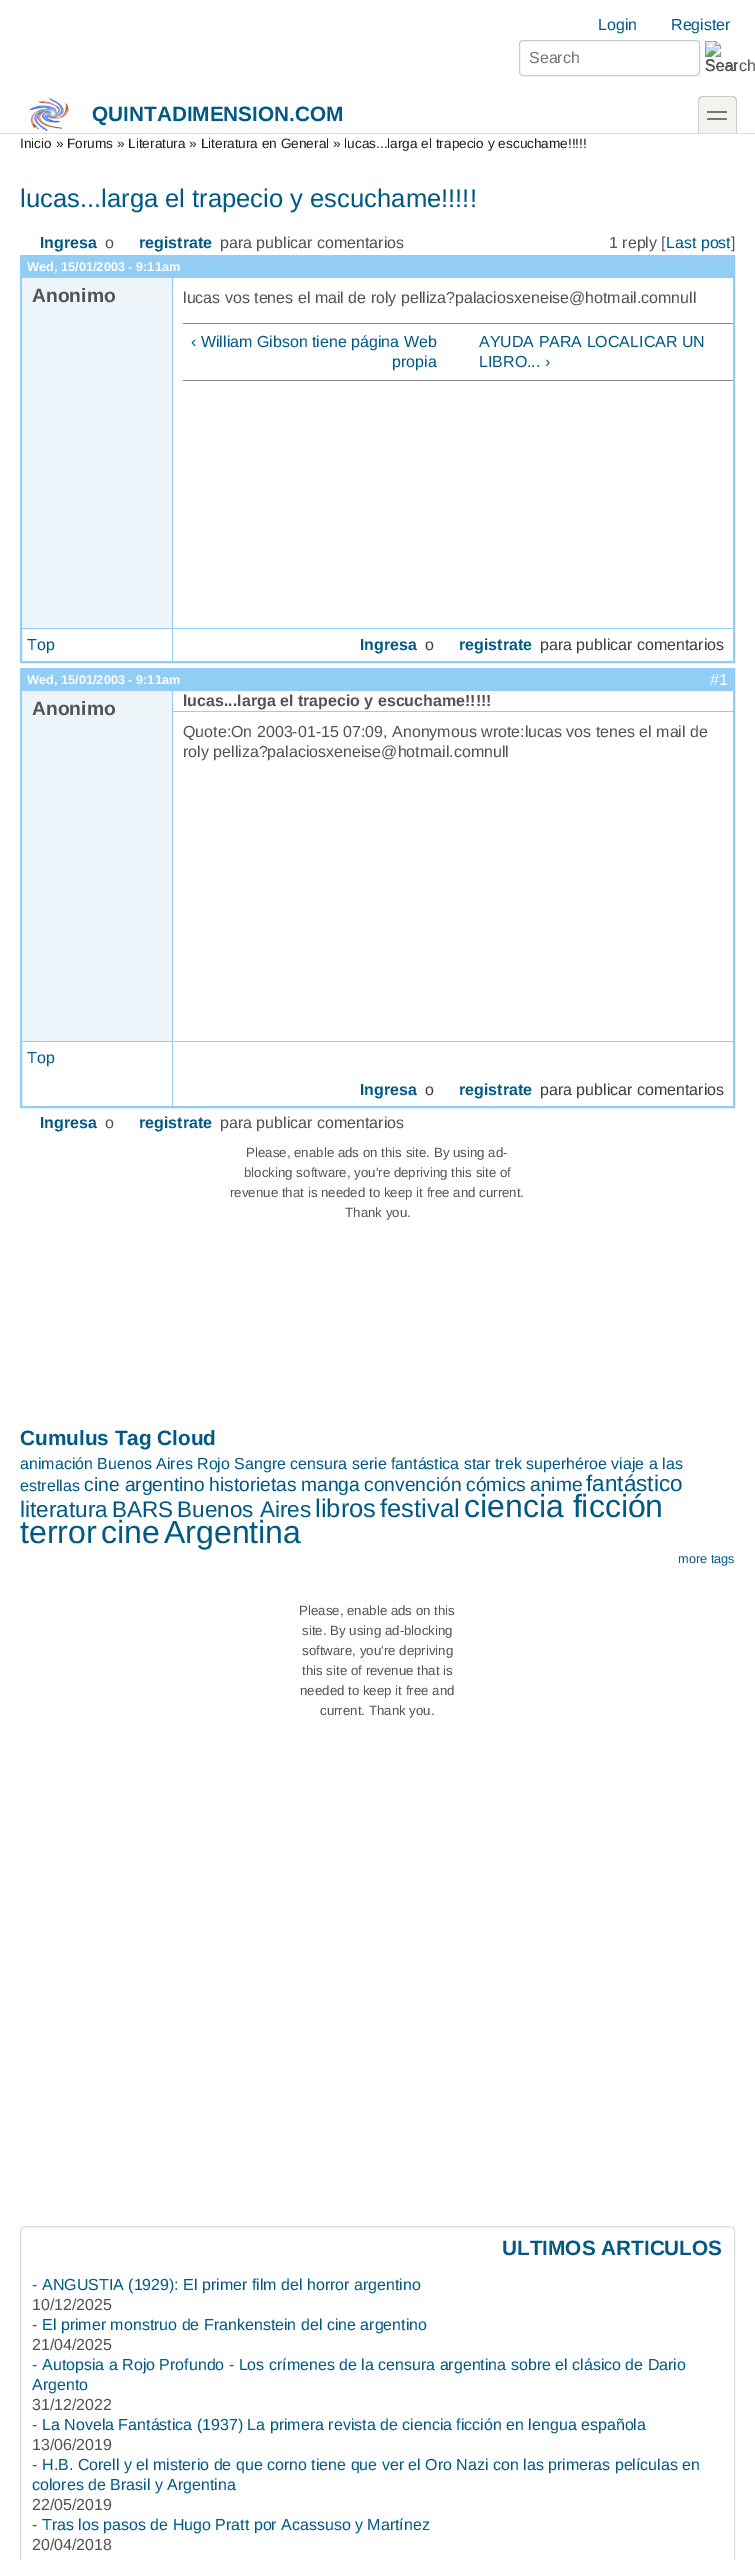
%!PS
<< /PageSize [755 2560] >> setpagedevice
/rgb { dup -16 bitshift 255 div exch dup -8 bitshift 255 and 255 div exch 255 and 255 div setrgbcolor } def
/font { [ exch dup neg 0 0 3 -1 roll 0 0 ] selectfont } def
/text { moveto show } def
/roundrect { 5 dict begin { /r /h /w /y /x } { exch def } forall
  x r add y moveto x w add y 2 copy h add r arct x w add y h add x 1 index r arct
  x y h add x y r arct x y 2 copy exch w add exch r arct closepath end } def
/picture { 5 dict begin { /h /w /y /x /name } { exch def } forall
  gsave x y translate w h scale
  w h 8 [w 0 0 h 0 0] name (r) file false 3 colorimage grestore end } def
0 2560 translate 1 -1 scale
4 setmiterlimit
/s1 { /LiberationSans-Regular 16 font 16#005A84 rgb } def
/s2 { /LiberationSans-Regular 16 font 16#757575 rgb } def
/s3 { /LiberationSans-Regular 16 font 16#535353 rgb } def
/s4 { /LiberationSans-Bold 20.75 font 16#005A84 rgb } def
/s5 { /LiberationSans-Regular 13.6 font 16#1E201B rgb } def
/s6 { /LiberationSans-Regular 25.6 font 16#005A84 rgb } def
/s7 { /LiberationSans-Bold 16 font 16#005A84 rgb } def
/s8 { /LiberationSans-Bold 12.75 font 16#FFFFFF rgb } def
/s9 { /LiberationSans-Bold 19.25 font 16#535353 rgb } def
/s10 { /LiberationSans-Regular 16 font 16#3F3F3F rgb } def
/s11 { /LiberationSans-Regular 16 font 16#FFFFFF rgb } def
/s12 { /LiberationSans-Bold 16 font 16#535353 rgb } def
/s13 { /LiberationSans-Regular 13.3 font 16#535353 rgb } def
/s14 { /LiberationSans-Regular 19.25 font 16#005A84 rgb } def
/s15 { /LiberationSans-Regular 22.5 font 16#005A84 rgb } def
/s16 { /LiberationSans-Regular 32 font 16#005A84 rgb } def
/s17 { /LiberationSans-Regular 12.75 font 16#005A84 rgb } def
16#FFFFFF rgb
0 0 755 2560 rectfill
s1
(Login) 598 30 text
(Register) 671 30 text
16#CCCCCC rgb
519.5 40.5 180 35 3.5 roundrect stroke
s2
(Search) 529 63 text
(pic1.raw) 705 41 32 30 picture
s3
(Search) 705 71 text
16#DDDDDD rgb
0 133 755 1 rectfill
(pic2.raw) 29 98 40 34 picture
s4
(QUINTADIMENSION.COM) 92 121 text
16#F4F2EE rgb
703 96 moveto 732 96 lineto 735 96 737 98 737 101 curveto 737 133 lineto 698 133 lineto 698 101 lineto 698 98 700 96 703 96 curveto closepath fill
16#CCCCCC rgb
703 96 moveto 732 96 lineto 735 96 737 98 737 101 curveto 737 133 lineto 698 133 lineto 698 101 lineto 698 98 700 96 703 96 curveto closepath 703 97 moveto 732 97 lineto 734 97 736 99 736 101 curveto 736 133 lineto 699 133 lineto 699 101 lineto 699 99 701 97 703 97 curveto closepath eofill
16#777777 rgb
707 111 20 2 1 roundrect fill
707 118 20 2 1 roundrect fill
s5
(Inicio » Forums » Literatura » Literatura en General » lucas...larga el trapecio y escuchame!!!!!) 20 148 text
s6
(lucas...larga el trapecio y escuchame!!!!!) 20 207 text
s7
(Ingresa) 40 248 text
s3
(o) 105 248 text
s7
(registrate) 139 248 text
s3
(para publicar comentarios) 220 248 text
(1 reply [) 609 248 text
s1
(Last post) 666 248 text
s3
(]) 731 248 text
16#91CDF5 rgb
2 setlinewidth
21 256 713 406 rectstroke
22 257 711 21 rectfill
s8
(Wed, 15/01/2003 - 9:11am) 27 271 text
16#EDF5FA rgb
22 278 150 350 rectfill
s9
(Anonimo) 32 302 text
16#91CDF5 rgb
172 278 1 350 rectfill
s3
(lucas vos tenes el mail de roly pelliza?palaciosxeneise@hotmail.comnull) 183 303 text
16#888888 rgb
183 323 550 1 rectfill
183 380 550 1 rectfill
s1
(‹ William Gibson tiene página Web) 191 347 text
(propia) 392 367 text
(AYUDA PARA LOCALICAR UN) 479 347 text
(LIBRO... ›) 479 367 text
16#91CDF5 rgb
22 628 711 1 rectfill
s1
(Top) 27 650 text
16#91CDF5 rgb
172 629 1 32 rectfill
s7
(Ingresa) 360 650 text
s10
(o) 425 650 text
s7
(registrate) 459 650 text
s10
(para publicar comentarios) 540 650 text
16#91CDF5 rgb
21 669 713 438 rectstroke
22 670 711 21 rectfill
s8
(Wed, 15/01/2003 - 9:11am) 27 684 text
s11
(#1) 710 685 text
16#EDF5FA rgb
22 691 150 350 rectfill
s9
(Anonimo) 32 715 text
16#91CDF5 rgb
172 691 1 350 rectfill
173 711 560 1 rectfill
s12
(lucas...larga el trapecio y escuchame!!!!!) 183 706 text
s3
(Quote:On 2003-01-15 07:09, Anonymous wrote:lucas vos tenes el mail de) 183 737 text
(roly pelliza?palaciosxeneise@hotmail.comnull) 183 757 text
16#91CDF5 rgb
22 1041 711 1 rectfill
s1
(Top) 27 1063 text
16#91CDF5 rgb
172 1042 1 64 rectfill
s7
(Ingresa) 360 1095 text
s10
(o) 425 1095 text
s7
(registrate) 459 1095 text
s10
(para publicar comentarios) 540 1095 text
s7
(Ingresa) 40 1128 text
s3
(o) 105 1128 text
s7
(registrate) 139 1128 text
s3
(para publicar comentarios) 220 1128 text
s13
(Please, enable ads on this site. By using ad-) 246 1157 text
(blocking software, you're depriving this site of) 244 1177 text
(revenue that is needed to keep it free and current.) 230 1197 text
(Thank you.) 345 1217 text
s4
(Cumulus Tag Cloud) 20 1445 text
s1
(animación Buenos Aires Rojo Sangre censura serie fantástica star trek superhéroe viaje a las) 20 1469 text
(estrellas) 20 1491 text
s14
(cine argentino) 84 1491 text
(historietas) 209 1491 text
(manga) 301 1491 text
(convención) 364 1491 text
(cómics) 466 1491 text
(anime) 530 1491 text
s15
(fantástico) 586 1491 text
(literatura) 20 1517 text
(BARS) 112 1517 text
(Buenos Aires) 177 1517 text
s6
(libros) 315 1517 text
(festival) 380 1517 text
s16
(ciencia ficción) 464 1517 text
(terror) 20 1543 text
(cine) 101 1543 text
(Argentina) 164 1543 text
s17
(more tags) 678 1563 text
s13
(Please, enable ads on this) 299 1615 text
(site. By using ad-blocking) 302 1635 text
(software, you're depriving) 302 1655 text
(this site of revenue that is) 302 1675 text
(needed to keep it free and) 300 1695 text
(current. Thank you.) 320 1715 text
16#DDDDDD rgb
1 setlinewidth
20.5 2226.5 714 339 4.5 roundrect stroke
s4
(ULTIMOS ARTICULOS) 502 2255 text
s3
(-) 32 2290 text
s1
(ANGUSTIA \(1929\): El primer film del horror argentino) 42 2290 text
s3
(10/12/2025) 32 2310 text
(-) 32 2330 text
s1
(El primer monstruo de Frankenstein del cine argentino) 42 2330 text
s3
(21/04/2025) 32 2350 text
(-) 32 2370 text
s1
(Autopsia a Rojo Profundo - Los crímenes de la censura argentina sobre el clásico de Dario) 42 2370 text
(Argento) 32 2390 text
s3
(31/12/2022) 32 2410 text
(-) 32 2430 text
s1
(La Novela Fantástica \(1937\) La primera revista de ciencia ficción en lengua española) 42 2430 text
s3
(13/06/2019) 32 2450 text
(-) 32 2470 text
s1
(H.B. Corell y el misterio de que corno tiene que ver el Oro Nazi con las primeras películas en) 42 2470 text
(colores de Brasil y Argentina) 32 2490 text
s3
(22/05/2019) 32 2510 text
(-) 32 2530 text
s1
(Tras los pasos de Hugo Pratt por Acassuso y Martínez) 42 2530 text
s3
(20/04/2018) 32 2550 text
showpage
